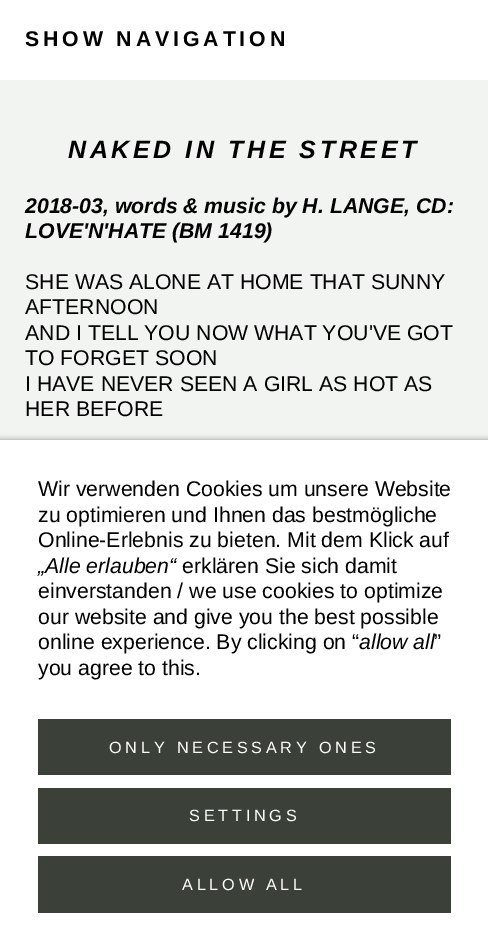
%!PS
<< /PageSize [488 950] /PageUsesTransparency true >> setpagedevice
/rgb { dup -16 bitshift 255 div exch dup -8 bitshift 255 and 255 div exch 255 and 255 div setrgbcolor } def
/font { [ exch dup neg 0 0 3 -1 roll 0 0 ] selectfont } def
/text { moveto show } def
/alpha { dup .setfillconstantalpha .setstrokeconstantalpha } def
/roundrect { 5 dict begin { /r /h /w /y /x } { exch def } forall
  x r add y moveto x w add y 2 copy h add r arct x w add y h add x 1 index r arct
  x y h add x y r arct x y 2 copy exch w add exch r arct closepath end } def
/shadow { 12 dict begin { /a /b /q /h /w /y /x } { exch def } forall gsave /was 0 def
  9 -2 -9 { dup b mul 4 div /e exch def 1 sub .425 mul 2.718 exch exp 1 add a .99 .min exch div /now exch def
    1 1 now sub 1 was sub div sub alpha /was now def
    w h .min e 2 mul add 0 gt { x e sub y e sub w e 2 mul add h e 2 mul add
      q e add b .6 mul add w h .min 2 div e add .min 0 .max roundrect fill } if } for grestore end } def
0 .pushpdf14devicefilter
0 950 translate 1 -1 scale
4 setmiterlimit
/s1 { /LiberationSans-BoldItalic 21.25 font 16#000000 rgb } def
/s2 { /LiberationSans-Regular 21.25 font 16#000000 rgb } def
/s3 { /LiberationSans-Italic 21.25 font 16#000000 rgb } def
16#F2F4F2 rgb
0 0 488 950 rectfill
16#FFFFFF rgb
0 0 488 80 rectfill
/LiberationSans-Bold 21.25 font
16#000000 rgb
25 46 moveto 3.9 0 (SHOW NAVIGATION) ashow
/LiberationSans-BoldItalic 25 font
68 158 moveto 3.6 0 (NAKED IN THE STREET) ashow
s1
(2018-03, words & music by H. LANGE, CD:) 25 213 text
(LOVE'N'HATE \(BM 1419\)) 25 238 text
s2
(SHE WAS ALONE AT HOME THAT SUNNY) 25 289 text
(AFTERNOON) 25 314 text
(AND I TELL YOU NOW WHAT YOU'VE GOT) 25 340 text
(TO FORGET SOON) 25 365 text
(I HAVE NEVER SEEN A GIRL AS HOT AS) 25 391 text
(HER BEFORE) 25 416 text
0 440 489 510 0 3 0.4 shadow
16#FFFFFF rgb
0 440 488 510 rectfill
s2
(Wir verwenden Cookies um unsere Website) 38 496 text
(zu optimieren und Ihnen das bestmögliche) 38 522 text
(Online-Erlebnis zu bieten. Mit dem Klick auf) 38 547 text
s3
(„Alle erlauben“) 38 573 text
s2
(erklären Sie sich damit) 182 573 text
(einverstanden / we use cookies to optimize) 38 598 text
(our website and give you the best possible) 38 624 text
(online experience. By clicking on “) 38 649 text
s3
(allow all) 359 649 text
s2
(”) 434 649 text
(you agree to this.) 38 675 text
16#3B4038 rgb
38 719 413 56 rectfill
/LiberationSans-Regular 16.25 font
16#FFFFFF rgb
109 753 moveto 3.75 0 (ONLY NECESSARY ONES) ashow
16#3B4038 rgb
38 788 413 56 rectfill
16#FFFFFF rgb
189 821 moveto 3.75 0 (SETTINGS) ashow
16#3B4038 rgb
38 856 413 57 rectfill
16#FFFFFF rgb
182 890 moveto 3.75 0 (ALLOW ALL) ashow
.poppdf14devicefilter showpage
